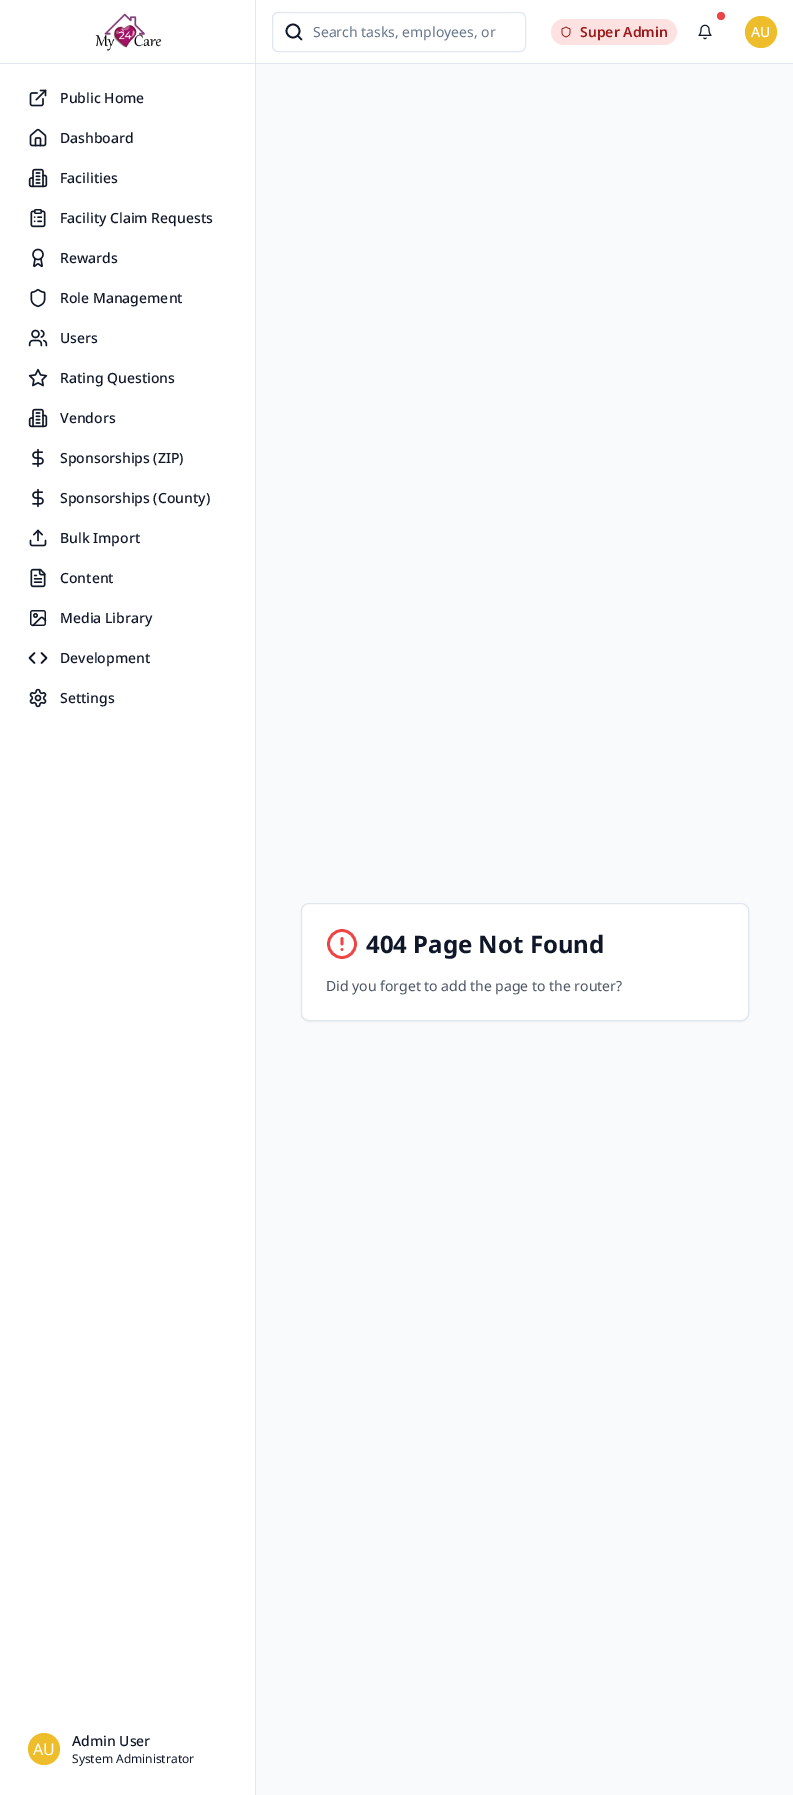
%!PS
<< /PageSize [793 1795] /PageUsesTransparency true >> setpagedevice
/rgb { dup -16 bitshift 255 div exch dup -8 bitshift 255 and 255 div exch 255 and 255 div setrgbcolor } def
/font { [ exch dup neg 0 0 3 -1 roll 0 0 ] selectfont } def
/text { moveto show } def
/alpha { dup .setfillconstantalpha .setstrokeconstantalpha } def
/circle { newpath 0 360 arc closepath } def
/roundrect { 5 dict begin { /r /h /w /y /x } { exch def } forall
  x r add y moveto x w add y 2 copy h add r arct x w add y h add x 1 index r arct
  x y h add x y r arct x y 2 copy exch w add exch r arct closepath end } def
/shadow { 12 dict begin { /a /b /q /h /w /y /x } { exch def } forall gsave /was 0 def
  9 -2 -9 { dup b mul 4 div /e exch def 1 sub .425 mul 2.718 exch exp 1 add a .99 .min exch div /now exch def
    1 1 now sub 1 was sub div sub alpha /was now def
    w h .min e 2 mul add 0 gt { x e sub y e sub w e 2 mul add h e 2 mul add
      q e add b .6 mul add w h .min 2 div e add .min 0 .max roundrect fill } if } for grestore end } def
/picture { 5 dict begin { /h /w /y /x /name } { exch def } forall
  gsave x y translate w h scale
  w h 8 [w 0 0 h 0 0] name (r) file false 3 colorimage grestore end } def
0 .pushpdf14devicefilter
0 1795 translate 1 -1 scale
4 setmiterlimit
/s1 { /NotoSans-Medium 14 font 16#0F1729 rgb } def
/s2 { /NotoSans-Regular 16 font 16#FFFFFF rgb } def
/s3 { /NotoSans-Regular 12 font 16#0F1729 rgb } def
/s4 { /NotoSans-Regular 14 font 16#65758B rgb } def
/s5 { /NotoSans-SemiBold 14 font 16#991B1B rgb } def
/s6 { /NotoSans-Medium 14 font 16#FFFFFF rgb } def
/s7 { /NotoSans-Bold 24 font 16#0F1729 rgb } def
/s8 { /NotoSans-Regular 14 font 16#4B5563 rgb } def
16#FFFFFF rgb
0 0 793 1795 rectfill
16#E1E7EF rgb
255 0 1 1795 rectfill
0 63 255 1 rectfill
(pic1.raw) 95 13 67 38 picture
(pic2.raw) 29 89 18 18 picture
s1
(Public Home) 60 103 text
(pic3.raw) 29 128 18 19 picture
(Dashboard) 60 143 text
(pic4.raw) 28 168 20 20 picture
(Facilities) 60 183 text
(pic5.raw) 30 209 16 19 picture
(Facility Claim Requests) 60 223 text
(pic6.raw) 32 248 12 20 picture
(Rewards) 60 263 text
(pic7.raw) 30 288 16 20 picture
(Role Management) 60 303 text
(pic8.raw) 28 329 20 18 picture
(Users) 60 343 text
(pic9.raw) 28 368 20 19 picture
(Rating Questions) 60 383 text
(pic4.raw) 28 408 20 20 picture
(Vendors) 60 423 text
(pic10.raw) 32 448 12 20 picture
(Sponsorships \(ZIP\)) 60 463 text
(pic10.raw) 32 488 12 20 picture
(Sponsorships \(County\)) 60 503 text
(pic11.raw) 29 529 18 18 picture
(Bulk Import) 60 543 text
(pic12.raw) 30 568 16 20 picture
(Content) 60 583 text
(pic13.raw) 30 610 17 17 picture
(Media Library) 60 623 text
1.7 setlinewidth
1 setlinecap
1 setlinejoin
41.5 663 moveto 46.5 658 lineto 41.5 653 lineto 34.5 653 moveto 29.5 658 lineto 34.5 663 lineto stroke
(Development) 60 663 text
(pic14.raw) 29 688 18 20 picture
(Settings) 60 703 text
16#EEBD2B rgb
44 1749 16 circle fill
s2
(AU) 33 1755 text
s1
(Admin User) 72 1746 text
s3
(System Administrator) 72 1763 text
16#E1E7EF rgb
256 63 537 1 rectfill
1 setlinewidth
0 setlinecap
0 setlinejoin
272.5 12.5 253 39 5.5 roundrect stroke
16#0F1729 rgb
1.7 setlinewidth
293 31 6.5 circle stroke
1 setlinecap
1 setlinejoin
301.5 39.5 moveto 298 36 lineto stroke
s4
(Search tasks, employees, or) 313 37 text
16#FEE2E2 rgb
551 19 126 26 13 roundrect fill
(pic15.raw) 561 26 10 12 picture
s5
(Super Admin) 580 37 text
16#EF4444 rgb
721 16 4 circle fill
(pic16.raw) 698 24 14 16 picture
16#EEBD2B rgb
761 32 16 circle fill
s6
(AU) 751 37 text
16#F9FAFB rgb
256 64 537 1731 rectfill
16#000000 rgb
301 904 448 118 8 1 0.05 shadow
16#FFFFFF rgb
301.5 903.5 447 117 7.5 roundrect gsave fill grestore
16#E1E7EF rgb
1 setlinewidth
0 setlinecap
0 setlinejoin
stroke
16#EF4444 rgb
2.7 setlinewidth
342 944 13.5 circle stroke
1 setlinecap
1 setlinejoin
342 938.5 moveto 342 944 lineto 342 949.5 moveto 342 949.5 lineto stroke
s7
(404 Page Not Found) 366 953 text
s8
(Did you forget to add the page to the router?) 326 991 text
.poppdf14devicefilter showpage
